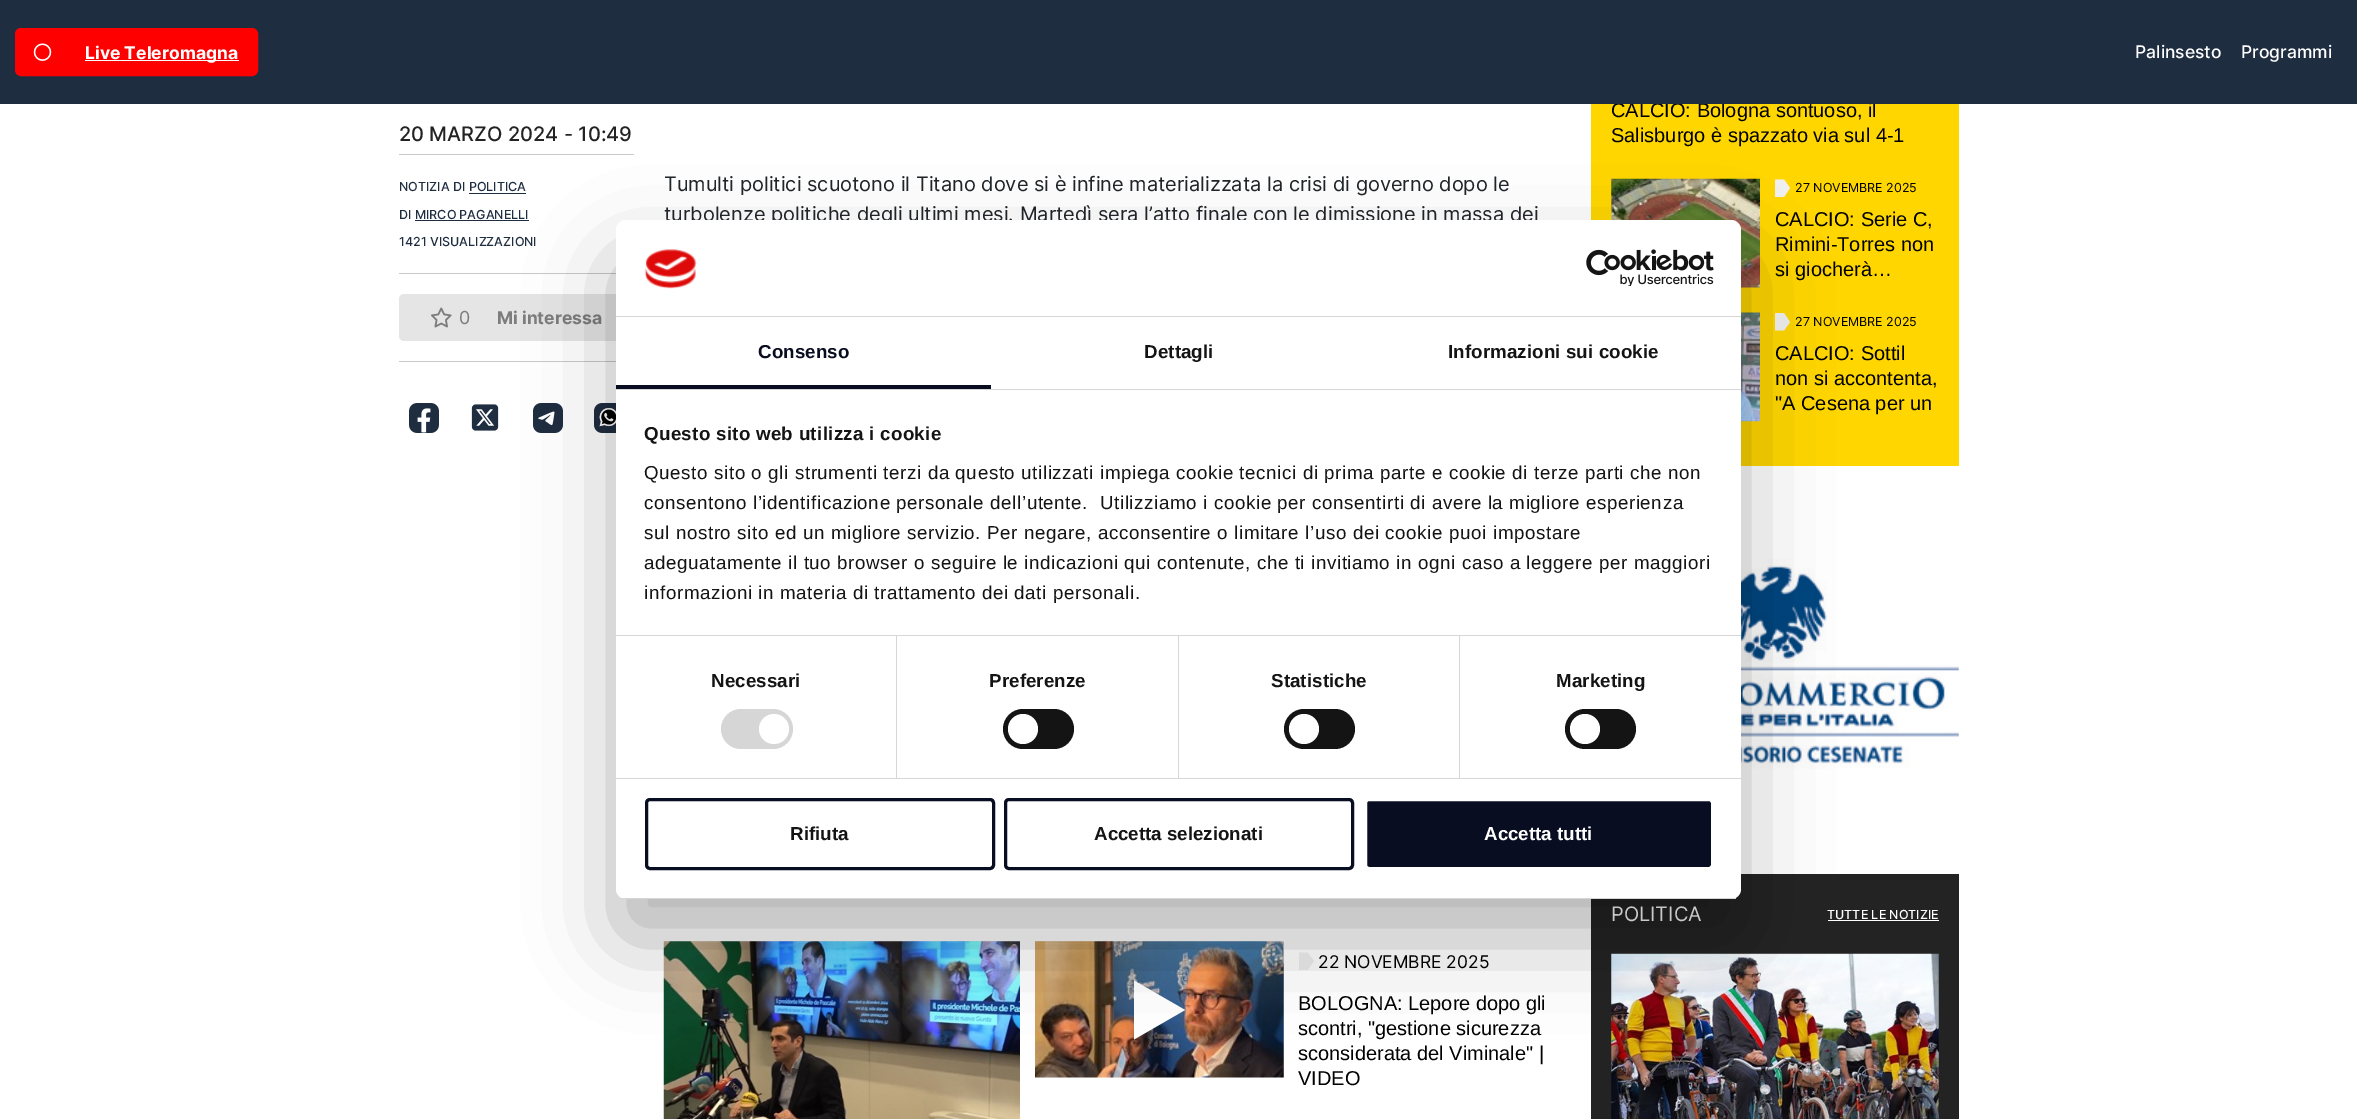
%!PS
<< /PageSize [2357 1119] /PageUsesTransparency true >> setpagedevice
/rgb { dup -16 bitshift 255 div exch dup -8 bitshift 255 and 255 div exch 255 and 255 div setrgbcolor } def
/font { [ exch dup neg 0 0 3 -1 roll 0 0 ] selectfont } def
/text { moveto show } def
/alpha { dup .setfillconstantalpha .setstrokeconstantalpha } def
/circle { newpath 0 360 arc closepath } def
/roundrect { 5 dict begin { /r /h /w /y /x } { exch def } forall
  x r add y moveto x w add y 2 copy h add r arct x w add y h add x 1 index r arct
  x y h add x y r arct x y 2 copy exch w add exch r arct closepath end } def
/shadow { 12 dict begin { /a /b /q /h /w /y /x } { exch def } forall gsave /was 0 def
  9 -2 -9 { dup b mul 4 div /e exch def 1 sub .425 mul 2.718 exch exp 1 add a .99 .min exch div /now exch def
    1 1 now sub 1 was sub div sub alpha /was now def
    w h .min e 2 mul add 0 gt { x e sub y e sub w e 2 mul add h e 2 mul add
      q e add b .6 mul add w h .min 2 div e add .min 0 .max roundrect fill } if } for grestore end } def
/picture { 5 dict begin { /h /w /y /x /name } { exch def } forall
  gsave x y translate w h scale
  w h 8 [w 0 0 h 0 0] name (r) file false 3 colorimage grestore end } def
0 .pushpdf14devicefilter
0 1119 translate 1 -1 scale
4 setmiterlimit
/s1 { /LiberationSans-Regular 20 font 16#000000 rgb } def
/s2 { /Inter-Bold 17.5 font 16#FFFFFF rgb } def
/s3 { /Inter-Medium 17.5 font 16#FFFFFF rgb } def
/s4 { /Inter-Medium 20 font 16#232323 rgb } def
/s5 { /Inter-Medium 12.5 font 16#1F2D41 rgb } def
/s6 { /Inter-Regular 18 font 16#7D7D7D rgb } def
/s7 { /Inter-Bold 17.5 font 16#7D7D7D rgb } def
/s8 { /Inter-Regular 20 font 16#212529 rgb } def
/s9 { /Inter-Regular 17.5 font 16#000000 rgb } def
/s10 { /Inter-Regular 12.5 font 16#000000 rgb } def
/s11 { /Inter-Regular 20 font 16#FFFFFF rgb } def
/s12 { /Inter-Medium 12.5 font 16#FFFFFF rgb } def
/s13 { /LiberationSans-Bold 18.75 font 16#141414 rgb } def
/s14 { /LiberationSans-Bold 18.75 font 16#FFFFFF rgb } def
16#FFFFFF rgb
0 0 2357 1119 rectfill
16#FFD600 rgb
1591 104 368 362 rectfill
s1
(CALCIO: Bologna sontuoso, il) 1611 117 text
16#1F2D41 rgb
0 0 2357 104 rectfill
16#FF0000 rgb
17 30 239 44 4 roundrect gsave fill grestore
4 setlinewidth
stroke
(pic1.raw) 33 43 19 18 picture
16#FFFFFF rgb
85 60 154 1 rectfill
s2
(Live Teleromagna) 85 59 text
s3
(Palinsesto) 2135 58 text
(Programmi) 2241 58 text
s4
(20 MARZO 2024 - 10:49) 399 141 text
16#C8C9CA rgb
399 154 235 1 rectfill
s5
(NOTIZIA DI POLITICA) 399 191 text
469 193 57 1 rectfill
(DI MIRCO PAGANELLI) 399 219 text
415 220 114 1 rectfill
(1421 VISUALIZZAZIONI) 399 246 text
16#C8C9CA rgb
399 273 217 1 rectfill
16#E5E5E5 rgb
399 294 235 47 5 roundrect fill
(pic2.raw) 431 307 21 21 picture
s6
(0) 459 324 text
s7
(Mi interessa) 497 324 text
16#C8C9CA rgb
399 361 217 1 rectfill
(pic3.raw) 409 403 30 30 picture
(pic4.raw) 471 404 28 27 picture
(pic5.raw) 533 403 30 30 picture
(pic6.raw) 594 403 22 30 picture
s8
(Tumulti politici scuotono il Titano dove si è infine materializzata la crisi di governo dopo le) 664 191 text
(turbolenze politiche degli ultimi mesi. Martedì sera l’atto finale con le dimissione in massa dei) 664 221 text
(pic7.raw) 663 941 357 178 picture
(pic8.raw) 1035 941 249 137 picture
gsave
1134 980 51 60 rectclip
16#FFFFFF rgb
1185 1010 moveto 1133 1040 lineto 1133 980 lineto closepath fill
grestore
16#F0F0F0 rgb
1299 952.5 moveto 1307.5 952.5 lineto 1314 961 lineto 1307.5 970 lineto 1299 970 lineto closepath fill
s9
(22 NOVEMBRE 2025) 1318 968 text
s1
(BOLOGNA: Lepore dopo gli) 1298 1010 text
(scontri, "gestione sicurezza) 1298 1035 text
(sconsiderata del Viminale" |) 1298 1060 text
(VIDEO) 1298 1085 text
(Salisburgo è spazzato via sul 4-1) 1611 142 text
(pic9.raw) 1611 178 149 110 picture
16#F0F0F0 rgb
1775 179.5 moveto 1784 179.5 lineto 1790 188 lineto 1784 197 lineto 1775 197 lineto closepath fill
s10
(27 NOVEMBRE 2025) 1795 192 text
s1
(CALCIO: Serie C,) 1775 226 text
(Rimini-Torres non) 1775 251 text
(si giocherà…) 1775 276 text
(pic10.raw) 1741 312 19 110 picture
16#F0F0F0 rgb
1775 313 moveto 1784 313 lineto 1790 322 lineto 1784 330.5 lineto 1775 330.5 lineto closepath fill
s10
(27 NOVEMBRE 2025) 1795 326 text
s1
(CALCIO: Sottil) 1775 360 text
(non si accontenta,) 1775 385 text
("A Cesena per un) 1775 410 text
(pic11.raw) 1741 559 218 210 picture
16#232323 rgb
1591 874 368 245 rectfill
s11
(POLITICA) 1611 921 text
s12
(TUTTE LE NOTIZIE) 1827 919 text
1828 920 111 1 rectfill
(pic12.raw) 1611 953 328 166 picture
16#000000 rgb
616 260 1125 679 10 42.5 0.3 shadow
16#FFFFFF rgb
616 220 1125 679 10 roundrect fill
16#D6D6D6 rgb
616 316 1125 1 rectfill
(pic13.raw) 644 249 53 40 picture
(pic14.raw) 1586 249 128 37 picture
616 389 1125 1 rectfill
16#080D21 rgb
616 385 375 4 rectfill
/LiberationSans-Bold 18.75 font
758 358 moveto 0.1 0 (Consenso) ashow
16#141414 rgb
1144 358 moveto 0.1 0 (Dettagli) ashow
1448 358 moveto 0.1 0 (Informazioni sui cookie) ashow
16#D6D6D6 rgb
616 635 1125 1 rectfill
16#141414 rgb
644 440 moveto 0.3 0 (Questo sito web utilizza i cookie) ashow
/LiberationSans-Regular 18.75 font
644 479 moveto 0.62 0 (Questo sito o gli strumenti terzi da questo utilizzati impiega cookie tecnici di prima parte e cookie di terze parti che non) ashow
644 509 moveto 0.62 0 (consentono l’identificazione personale dell’utente.  Utilizziamo i cookie per consentirti di avere la migliore esperienza) ashow
644 539 moveto 0.62 0 (sul nostro sito ed un migliore servizio. Per negare, acconsentire o limitare l’uso dei cookie puoi impostare) ashow
644 569 moveto 0.62 0 (adeguatamente il tuo browser o seguire le indicazioni qui contenute, che ti invitiamo in ogni caso a leggere per maggiori) ashow
644 599 moveto 0.62 0 (informazioni in materia di trattamento dei dati personali.) ashow
16#D6D6D6 rgb
616 778 1125 1 rectfill
896 636 1 142 rectfill
/LiberationSans-Bold 18.75 font
16#141414 rgb
711 687 moveto 0.1 0 (Necessari) ashow
16#D6D6D6 rgb
721 709 72 40 20 roundrect fill
16#FFFFFF rgb
774 729 15 circle fill
16#D6D6D6 rgb
1178 636 1 142 rectfill
16#141414 rgb
989 687 moveto 0.1 0 (Preferenze) ashow
1003 709 71 40 20 roundrect fill
16#FFFFFF rgb
1023 729 15 circle fill
16#D6D6D6 rgb
1459 636 1 142 rectfill
16#141414 rgb
1271 687 moveto 0.1 0 (Statistiche) ashow
1284 709 71 40 20 roundrect fill
16#FFFFFF rgb
1304 729 15 circle fill
16#141414 rgb
1556 687 moveto 0.1 0 (Marketing) ashow
1565 709 71 40 20 roundrect fill
16#FFFFFF rgb
1585 729 15 circle fill
gsave
616 220 1125 679 10 roundrect clip newpath
16#D6D6D6 rgb
616 898 1125 1 rectfill
grestore
16#080D21 rgb
3 setlinewidth
646.5 799.5 347 69 3.5 roundrect stroke
s13
(Rifiuta) 790 840 text
16#080D21 rgb
1005.5 799.5 347 69 3.5 roundrect stroke
s13
(Accetta selezionati) 1094 840 text
16#080D21 rgb
1365.5 799.5 347 69 3.5 roundrect gsave fill grestore
16#FFFFFF rgb
stroke
(Accetta tutti) 1484 840 text
.poppdf14devicefilter showpage
